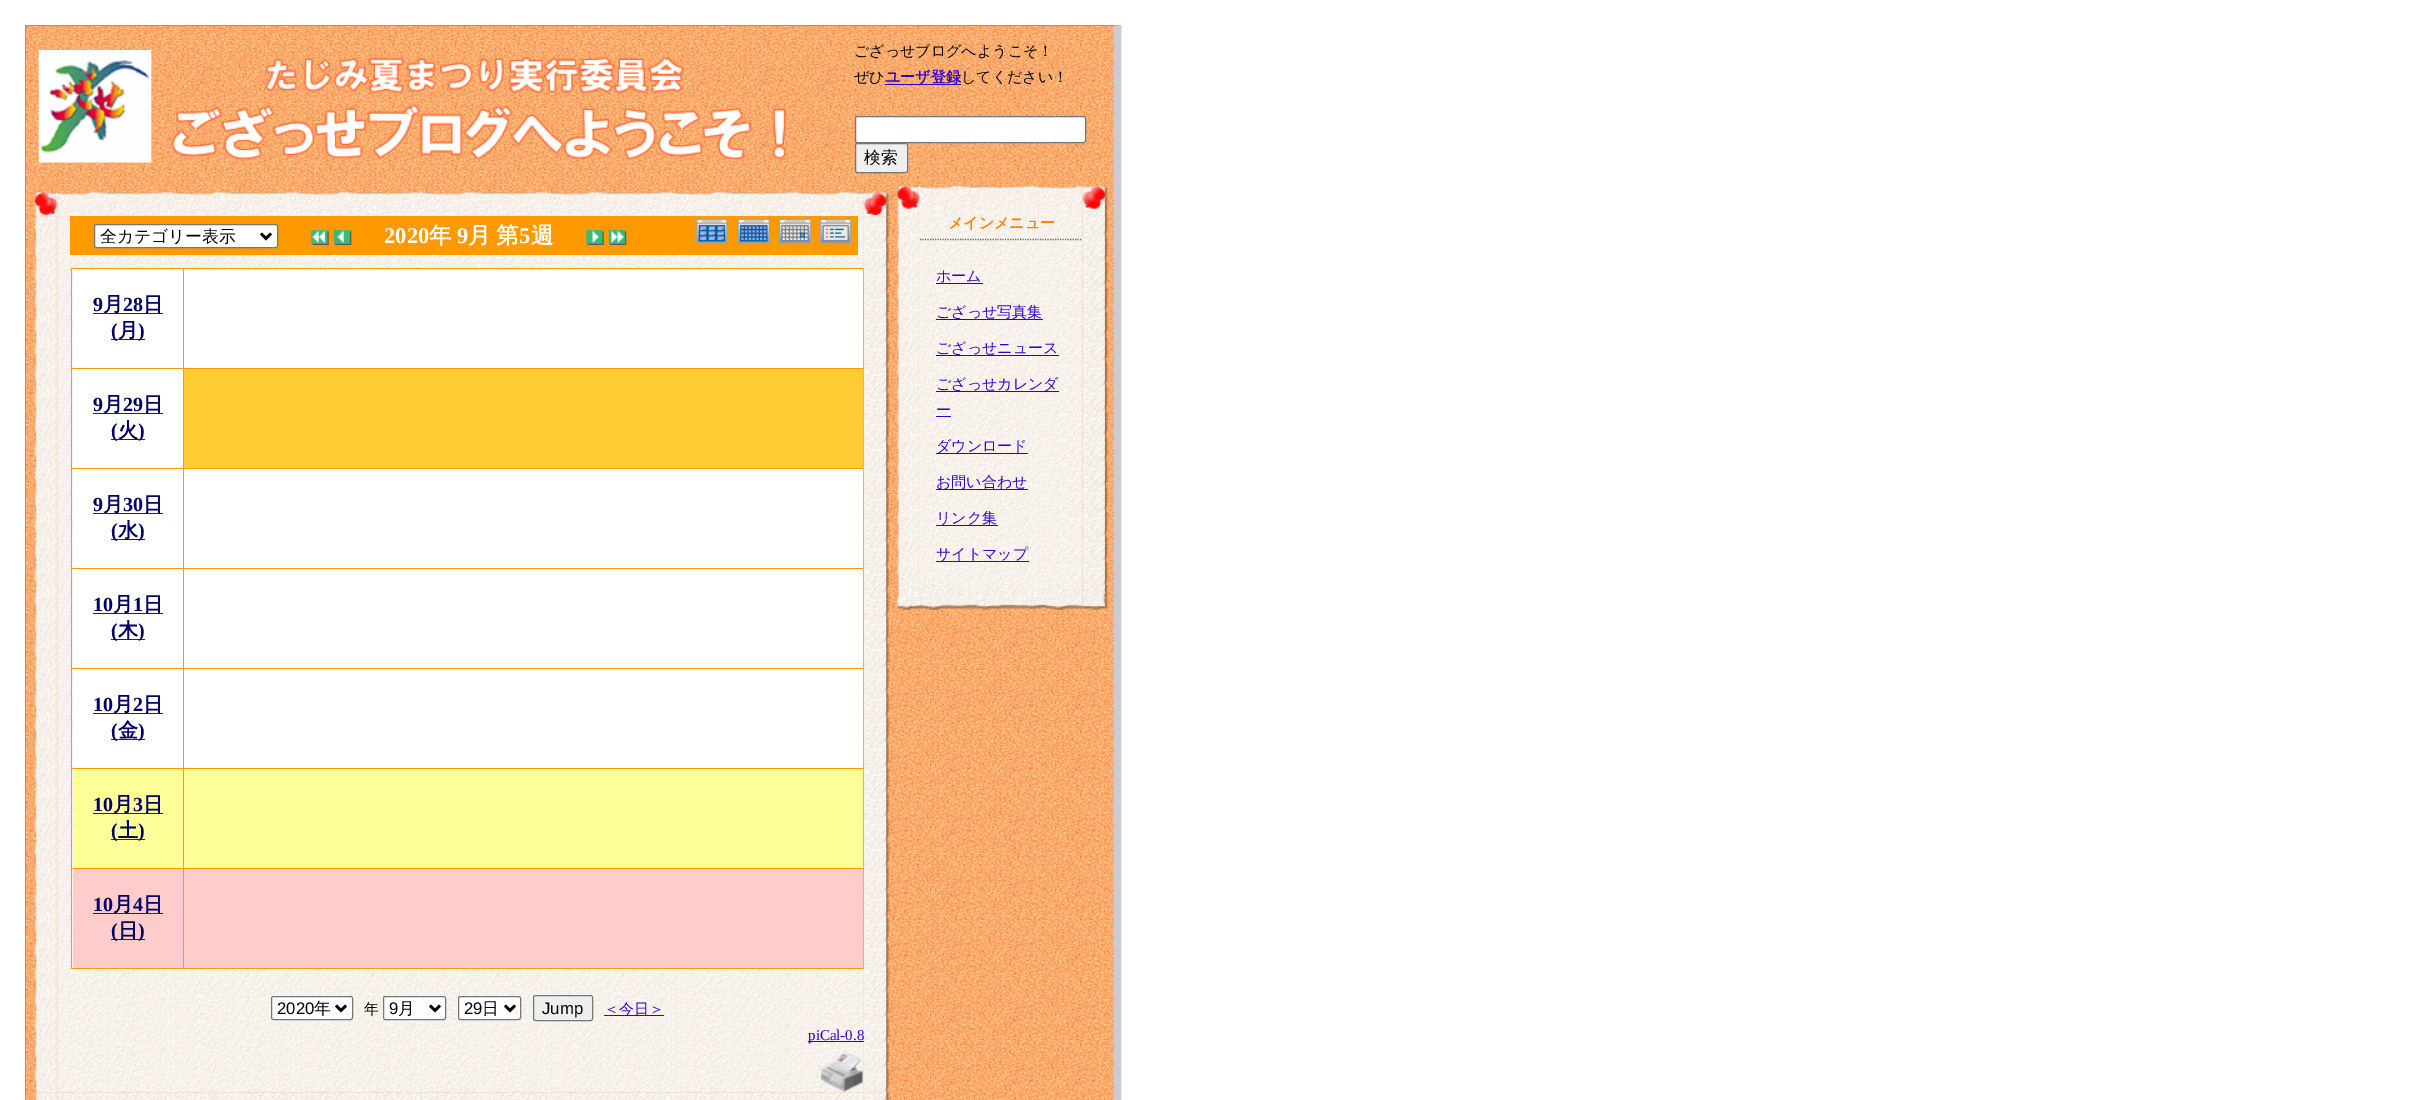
%!PS
<< /PageSize [2418 1100] >> setpagedevice
/rgb { dup -16 bitshift 255 div exch dup -8 bitshift 255 and 255 div exch 255 and 255 div setrgbcolor } def
/font { [ exch dup neg 0 0 3 -1 roll 0 0 ] selectfont } def
/text { moveto show } def
/roundrect { 5 dict begin { /r /h /w /y /x } { exch def } forall
  x r add y moveto x w add y 2 copy h add r arct x w add y h add x 1 index r arct
  x y h add x y r arct x y 2 copy exch w add exch r arct closepath end } def
/picture { 5 dict begin { /h /w /y /x /name } { exch def } forall
  gsave x y translate w h scale
  w h 8 [w 0 0 h 0 0] name (r) file false 3 colorimage grestore end } def
0 1100 translate 1 -1 scale
4 setmiterlimit
/s1 { /WenQuanYiZenHei-Medium 15 font 16#000000 rgb } def
/s2 { /WenQuanYiZenHei-Bold 15 font 16#3300CC rgb } def
/s3 { /WenQuanYiZenHei-Medium 16.75 font 16#000000 rgb } def
/s4 { /LiberationSerif-Bold 22.5 font 16#FFFFFF rgb } def
/s5 { /WenQuanYiZenHei-Bold 22.5 font 16#FFFFFF rgb } def
/s6 { /LiberationSerif-Bold 20 font 16#000066 rgb } def
/s7 { /WenQuanYiZenHei-Bold 20 font 16#000066 rgb } def
/s8 { /LiberationSans-Regular 16.75 font 16#000000 rgb } def
/s9 { /WenQuanYiZenHei-Medium 15 font 16#3300CC rgb } def
/s10 { /LiberationSerif-Regular 15 font 16#3300CC rgb } def
/s11 { /WenQuanYiZenHei-Bold 15 font 16#FF8000 rgb } def
16#FFFFFF rgb
0 0 2418 1100 rectfill
(pic1.raw) 25 25 1097 1075 picture
16#999999 rgb
25 25 moveto 1121 25 lineto 1114 26 lineto 26 26 lineto closepath fill
16#CCCCCC rgb
1121 25 moveto 1121 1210 lineto 1114 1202 lineto 1114 26 lineto closepath fill
16#999999 rgb
25 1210 moveto 25 25 lineto 26 26 lineto 26 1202 lineto closepath fill
(pic2.raw) 38 50 749 113 picture
s1
(ござっせブログへようこそ！) 854 56 text
(ぜひ) 854 82 text
16#3300CC rgb
885 84 76 1 rectfill
s2
(ユーザ登録) 885 82 text
s1
(してください！) 961 82 text
16#FFFFFF rgb
855.5 116.5 230 26 2 roundrect gsave fill grestore
16#767676 rgb
stroke
16#EFEFEF rgb
855.5 143.5 52 29 2 roundrect gsave fill grestore
16#767676 rgb
stroke
s3
(検索) 864 163 text
(pic4.raw) 57 191 807 26 picture
(pic6.raw) 34 216 24 877 picture
(pic7.raw) 57 216 807 877 picture
(pic3.raw) 34 192 24 25 picture
16#FF9900 rgb
183 268 681 1 rectfill
183 368 681 1 rectfill
183 468 681 1 rectfill
183 568 681 1 rectfill
183 668 681 1 rectfill
183 768 681 1 rectfill
183 868 681 1 rectfill
863 868 1 101 rectfill
863 768 1 101 rectfill
863 668 1 101 rectfill
863 568 1 101 rectfill
863 468 1 101 rectfill
863 368 1 101 rectfill
863 268 1 101 rectfill
183 968 681 1 rectfill
(pic17.raw) 863 216 26 877 picture
(pic5.raw) 863 192 26 25 picture
70 216 788 39 rectfill
16#FFFFFF rgb
94.5 224.5 183 23 2 roundrect gsave fill grestore
16#767676 rgb
stroke
16#000000 rgb
2.5 setlinewidth
261 233.5 moveto 266 238.5 lineto 271 233.5 lineto stroke
(全カテゴリー表示) 100 242 text
(pic8.raw) 311 229 18 16 picture
(pic9.raw) 333 229 19 16 picture
s4
(2020) 384 243 text
s5
(年) 429 243 text
s4
(9) 457 243 text
/WenQuanYiZenHei-Bold 22.5 font
468 243 moveto -1 0 32 (月 第) widthshow
s4
(5) 519 243 text
s5
(週) 531 243 text
(pic10.raw) 586 229 18 16 picture
(pic11.raw) 608 229 19 16 picture
(pic12.raw) 696 218 32 26 picture
(pic13.raw) 737 218 34 26 picture
(pic14.raw) 778 218 34 26 picture
(pic15.raw) 820 218 32 26 picture
73 269 110 99 rectfill
16#FF9900 rgb
183 868 1 101 rectfill
71 868 113 1 rectfill
183 768 1 101 rectfill
71 768 113 1 rectfill
183 668 1 101 rectfill
71 668 113 1 rectfill
183 568 1 101 rectfill
71 568 113 1 rectfill
183 468 1 101 rectfill
71 468 113 1 rectfill
183 368 1 101 rectfill
71 368 113 1 rectfill
183 268 1 101 rectfill
71 268 113 1 rectfill
71 968 113 1 rectfill
71 868 1 101 rectfill
71 768 1 101 rectfill
71 668 1 101 rectfill
71 568 1 101 rectfill
71 468 1 101 rectfill
71 368 1 101 rectfill
71 268 1 101 rectfill
s6
(9) 93 311 text
16#3300CC rgb
93 313 70 1 rectfill
s7
(月) 103 311 text
s6
(28) 123 311 text
s7
(日) 143 311 text
16#3300CC rgb
111 339 34 1 rectfill
s6
(\() 111 337 text
s7
(月) 118 337 text
s6
(\)) 138 337 text
16#FFFFFF rgb
184 269 679 99 rectfill
73 369 110 99 rectfill
s6
(9) 93 411 text
16#3300CC rgb
93 413 70 1 rectfill
s7
(月) 103 411 text
s6
(29) 123 411 text
s7
(日) 143 411 text
16#3300CC rgb
111 439 34 1 rectfill
s6
(\() 111 437 text
s7
(火) 118 437 text
s6
(\)) 138 437 text
16#FFCC33 rgb
184 369 679 99 rectfill
16#FFFFFF rgb
73 469 110 99 rectfill
s6
(9) 93 511 text
16#3300CC rgb
93 513 70 1 rectfill
s7
(月) 103 511 text
s6
(30) 123 511 text
s7
(日) 143 511 text
16#3300CC rgb
111 539 34 1 rectfill
s6
(\() 111 537 text
s7
(水) 118 537 text
s6
(\)) 138 537 text
16#FFFFFF rgb
184 469 679 99 rectfill
73 569 110 99 rectfill
s6
(10) 93 611 text
16#3300CC rgb
93 613 70 1 rectfill
s7
(月) 113 611 text
s6
(1) 133 611 text
s7
(日) 143 611 text
16#3300CC rgb
111 639 34 1 rectfill
s6
(\() 111 637 text
s7
(木) 118 637 text
s6
(\)) 138 637 text
16#FFFFFF rgb
184 569 679 99 rectfill
73 669 110 99 rectfill
s6
(10) 93 711 text
16#3300CC rgb
93 713 70 1 rectfill
s7
(月) 113 711 text
s6
(2) 133 711 text
s7
(日) 143 711 text
16#3300CC rgb
111 739 34 1 rectfill
s6
(\() 111 737 text
s7
(金) 118 737 text
s6
(\)) 138 737 text
16#FFFFFF rgb
184 669 679 99 rectfill
16#FFFF99 rgb
73 769 110 99 rectfill
s6
(10) 93 811 text
16#3300CC rgb
93 813 70 1 rectfill
s7
(月) 113 811 text
s6
(3) 133 811 text
s7
(日) 143 811 text
16#3300CC rgb
111 839 34 1 rectfill
s6
(\() 111 837 text
s7
(土) 118 837 text
s6
(\)) 138 837 text
16#FFFF99 rgb
184 769 679 99 rectfill
16#FFCCCC rgb
73 869 110 99 rectfill
s6
(10) 93 911 text
16#3300CC rgb
93 913 70 1 rectfill
s7
(月) 113 911 text
s6
(4) 133 911 text
s7
(日) 143 911 text
16#3300CC rgb
111 939 34 1 rectfill
s6
(\() 111 937 text
s7
(日) 118 937 text
s6
(\)) 138 937 text
16#FFCCCC rgb
184 869 679 99 rectfill
16#FFFFFF rgb
271.5 996.5 81 23 2 roundrect gsave fill grestore
16#767676 rgb
1 setlinewidth
stroke
16#000000 rgb
2.5 setlinewidth
336 1005.5 moveto 341 1010.5 lineto 346 1005.5 lineto stroke
s8
(2020) 277 1014 text
s3
(年) 314 1014 text
s1
(年) 364 1014 text
16#FFFFFF rgb
383.5 996.5 62 23 2 roundrect gsave fill grestore
16#767676 rgb
1 setlinewidth
stroke
16#000000 rgb
2.5 setlinewidth
430 1005.5 moveto 435 1010.5 lineto 440 1005.5 lineto stroke
s8
(9) 389 1014 text
s3
(月) 398 1014 text
16#FFFFFF rgb
458.5 996.5 62 23 2 roundrect gsave fill grestore
16#767676 rgb
1 setlinewidth
stroke
16#000000 rgb
2.5 setlinewidth
505 1005.5 moveto 510 1010.5 lineto 515 1005.5 lineto stroke
s8
(29) 464 1014 text
s3
(日) 482 1014 text
16#EFEFEF rgb
533.5 995.5 59 25 2 roundrect gsave fill grestore
16#767676 rgb
1 setlinewidth
stroke
s8
(Jump) 542 1014 text
16#3300CC rgb
604 1015 60 1 rectfill
s9
(＜今日＞) 604 1014 text
808 1041 56 1 rectfill
s10
(piCal-0.8) 808 1040 text
(pic16.raw) 821 1051 42 41 picture
(pic19.raw) 57 1092 807 8 picture
(pic18.raw) 35 1092 23 8 picture
(pic20.raw) 863 1092 26 8 picture
(pic21.raw) 897 186 23 24 picture
(pic22.raw) 920 185 163 25 picture
(pic23.raw) 1082 186 26 24 picture
(pic24.raw) 897 210 23 375 picture
(pic25.raw) 920 210 163 375 picture
16#666666 rgb
1.2 setlinewidth
[1.25 1.25] 0 setdash
920 239.5 moveto 1082.5 239.5 lineto stroke
s11
(メインメニュー) 948 228 text
s9
(ホーム) 936 281 text
936 283 47 1 rectfill
936 319 107 1 rectfill
(ござっせ写真集) 936 317 text
936 355 123 1 rectfill
(ござっせニュース) 936 353 text
936 391 123 1 rectfill
(ござっせカレンダ) 936 389 text
(ー) 936 415 text
936 416 15 1 rectfill
936 453 92 1 rectfill
(ダウンロード) 936 451 text
936 489 92 1 rectfill
(お問い合わせ) 936 487 text
936 525 62 1 rectfill
(リンク集) 936 523 text
936 561 93 1 rectfill
(サイトマップ) 936 559 text
(pic26.raw) 1082 210 26 375 picture
(pic27.raw) 897 585 23 25 picture
(pic28.raw) 920 585 163 25 picture
(pic29.raw) 1082 585 26 25 picture
showpage
